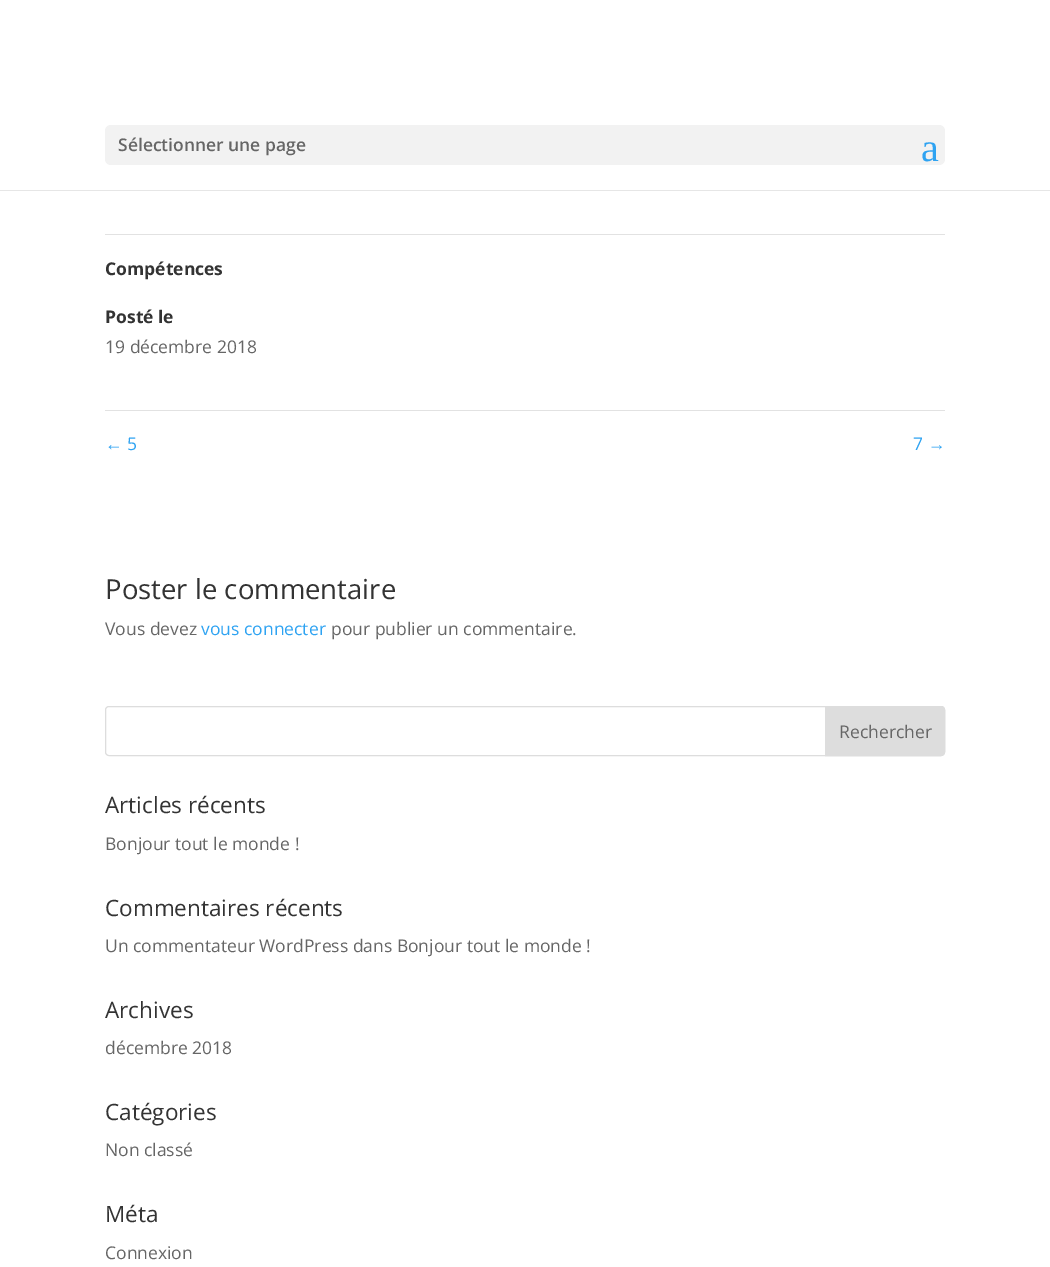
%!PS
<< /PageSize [1050 1267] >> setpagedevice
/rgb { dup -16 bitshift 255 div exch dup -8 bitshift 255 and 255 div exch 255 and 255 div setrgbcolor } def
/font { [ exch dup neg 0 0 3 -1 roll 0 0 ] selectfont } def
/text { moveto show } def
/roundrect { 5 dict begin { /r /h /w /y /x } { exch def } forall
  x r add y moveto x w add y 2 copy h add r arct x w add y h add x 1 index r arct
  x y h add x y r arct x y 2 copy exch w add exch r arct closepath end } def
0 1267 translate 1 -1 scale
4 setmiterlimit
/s1 { /OpenSans-SemiBold 17.5 font 16#666666 rgb } def
/s2 { /LiberationSerif-Regular 40 font 16#2EA3F2 rgb } def
/s3 { /OpenSans-Bold 17.5 font 16#333333 rgb } def
/s4 { /OpenSans-Regular 17.5 font 16#666666 rgb } def
/s5 { /LiberationSans-Regular 17.5 font 16#2EA3F2 rgb } def
/s6 { /OpenSans-Regular 17.5 font 16#2EA3F2 rgb } def
/s7 { /OpenSans-Regular 27.5 font 16#333333 rgb } def
/s8 { /OpenSans-Regular 22.5 font 16#333333 rgb } def
16#FFFFFF rgb
0 0 1050 1267 rectfill
16#E6E6E6 rgb
0 190 1050 1 rectfill
16#F2F2F2 rgb
105 125 840 40 6 roundrect fill
s1
(Sélectionner une page) 118 151 text
s2
(a) 921 161 text
16#E2E2E2 rgb
105 234 840 1 rectfill
105 410 840 1 rectfill
s3
(Compétences) 105 275 text
(Posté le) 105 323 text
s4
(19 décembre 2018) 105 353 text
s5
(←) 105 450 text
s6
(5) 127 450 text
(7) 913 450 text
s5
(→) 928 450 text
s7
(Poster le commentaire) 105 599 text
s4
(Vous devez) 105 635 text
s6
(vous connecter) 201 635 text
s4
(pour publier un commentaire.) 331 635 text
16#DDDDDD rgb
105.5 706.5 839 49 3.5 roundrect stroke
825.5 706.5 moveto 941 706.5 lineto 943 706.5 944.5 708 944.5 710 curveto 944.5 752 lineto 944.5 754 943 755.5 941 755.5 curveto 825.5 755.5 lineto closepath gsave fill grestore
stroke
s4
(Rechercher) 839 738 text
s8
(Articles récents) 105 813 text
s4
(Bonjour tout le monde !) 105 850 text
s8
(Commentaires récents) 105 916 text
s4
(Un commentateur WordPress dans Bonjour tout le monde !) 105 952 text
s8
(Archives) 105 1018 text
s4
(décembre 2018) 105 1054 text
s8
(Catégories) 105 1120 text
s4
(Non classé) 105 1156 text
s8
(Méta) 105 1222 text
s4
(Connexion) 105 1259 text
showpage
